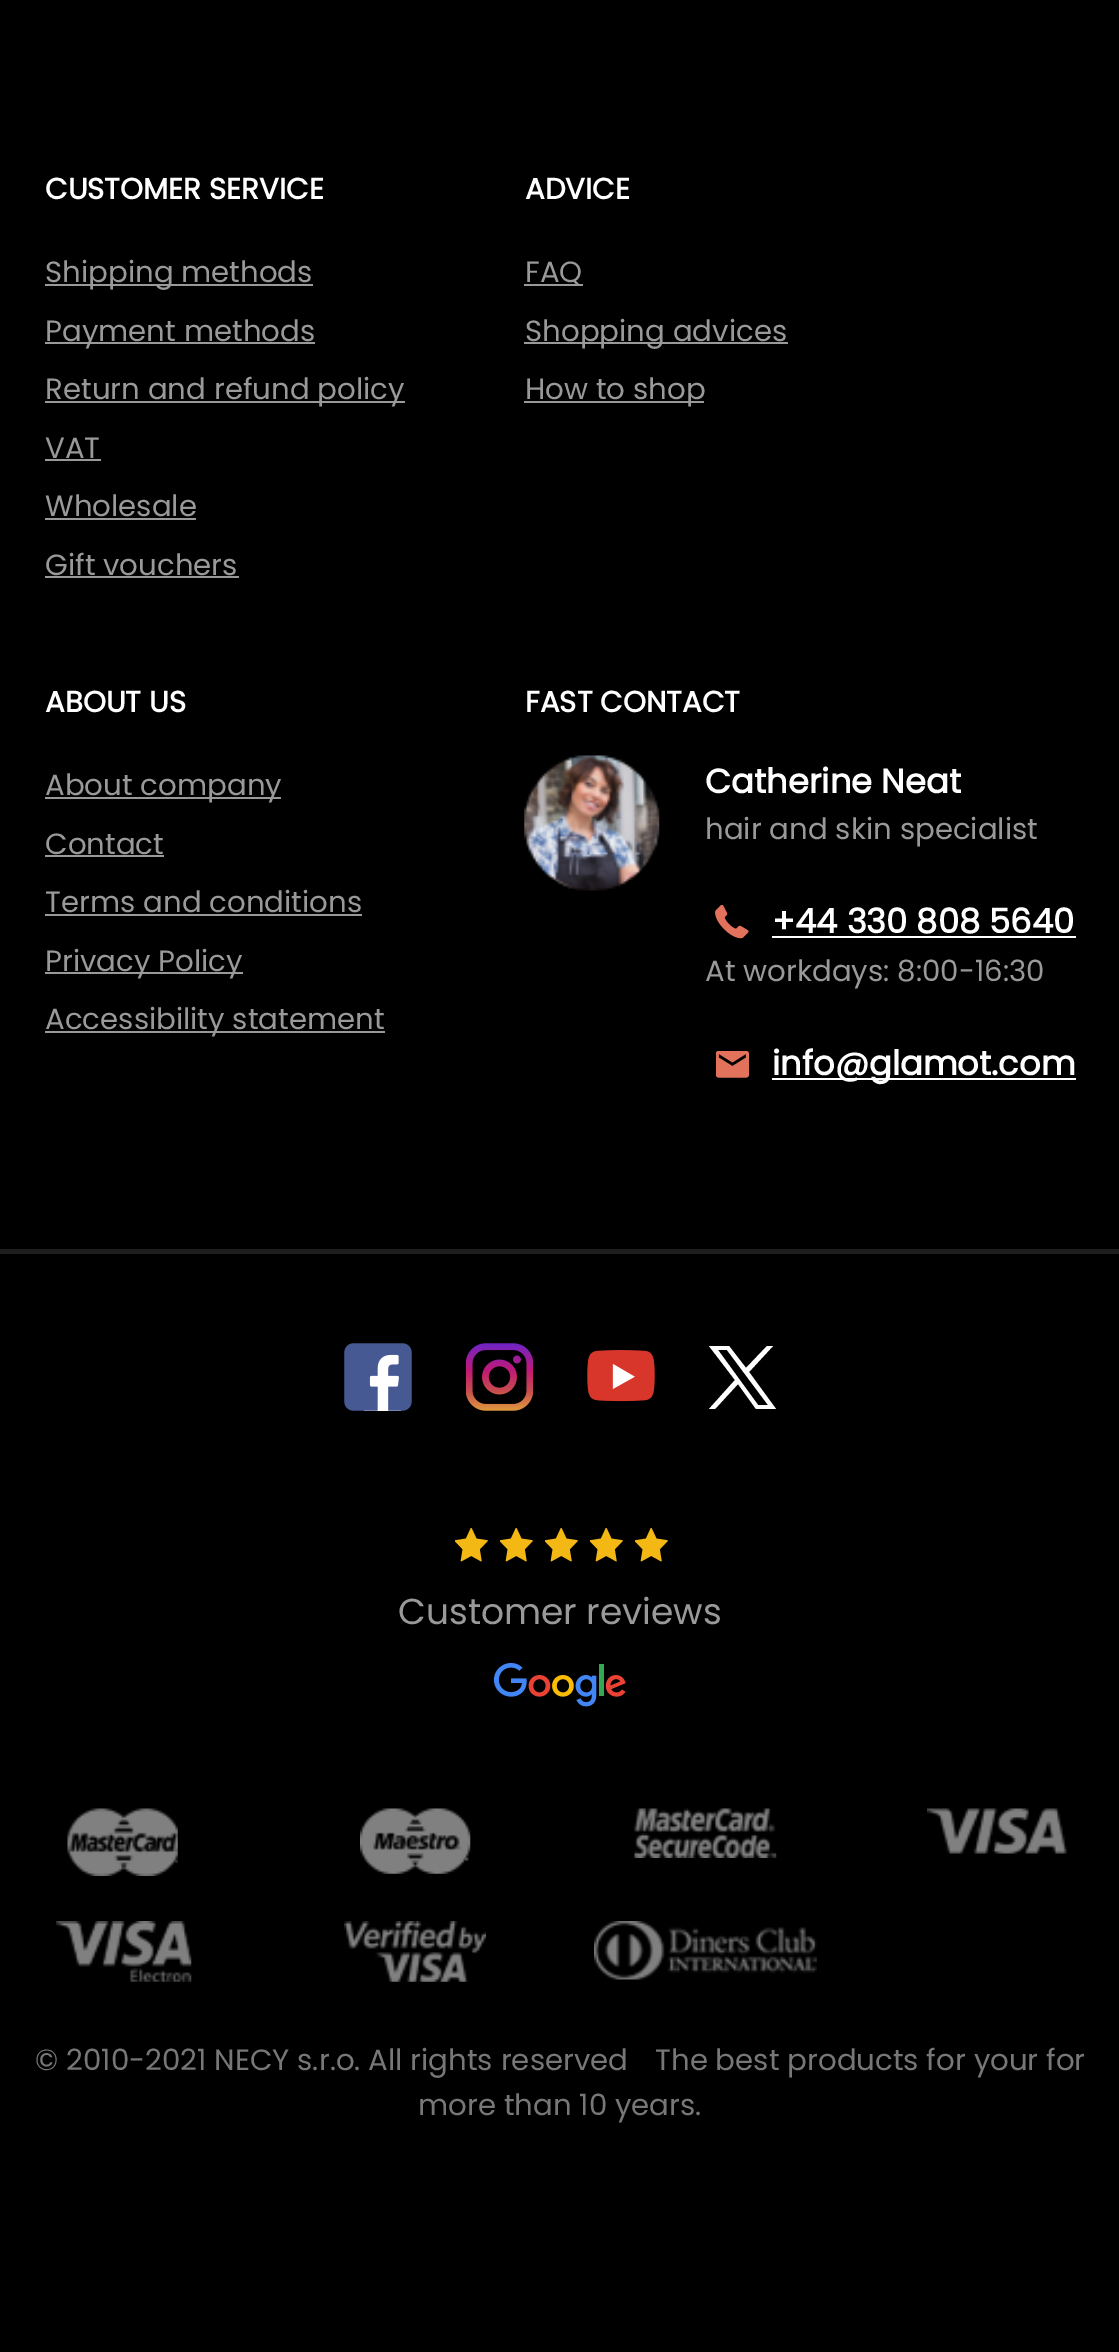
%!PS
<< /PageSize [1119 2352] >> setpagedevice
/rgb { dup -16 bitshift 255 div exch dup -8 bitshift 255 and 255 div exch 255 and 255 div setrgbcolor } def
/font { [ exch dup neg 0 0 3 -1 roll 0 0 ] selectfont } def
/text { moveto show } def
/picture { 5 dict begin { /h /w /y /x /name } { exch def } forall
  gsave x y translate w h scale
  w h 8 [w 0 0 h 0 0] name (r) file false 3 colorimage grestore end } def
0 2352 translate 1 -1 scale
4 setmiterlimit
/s1 { /Poppins-Bold 29.25 font 16#FFFFFF rgb } def
/s2 { /Poppins-Regular 29.25 font 16#999999 rgb } def
/s3 { /Poppins-Bold 33.75 font 16#FFFFFF rgb } def
/s4 { /Poppins-Regular 36 font 16#999999 rgb } def
/s5 { /Poppins-Regular 29.25 font 16#777777 rgb } def
16#000000 rgb
0 0 1119 2352 rectfill
s1
(CUSTOMER SERVICE) 45 199 text
16#999999 rgb
45 284 268 2 rectfill
s2
(Shipping methods) 45 282 text
45 342 270 2 rectfill
(Payment methods) 45 341 text
45 401 360 2 rectfill
(Return and refund policy) 45 399 text
(VAT) 45 458 text
45 459 56 2 rectfill
(Wholesale) 45 516 text
45 518 151 2 rectfill
(Gift vouchers) 45 575 text
45 576 194 2 rectfill
s1
(ADVICE) 525 199 text
16#999999 rgb
524 284 59 2 rectfill
s2
(FAQ) 525 282 text
524 342 264 2 rectfill
(Shopping advices) 525 341 text
524 401 180 2 rectfill
(How to shop) 525 399 text
s1
(ABOUT US) 45 712 text
16#999999 rgb
45 797 236 2 rectfill
s2
(About company) 45 795 text
(Contact) 45 854 text
45 855 119 2 rectfill
(Terms and conditions) 45 912 text
45 914 317 2 rectfill
45 972 198 2 rectfill
(Privacy Policy) 45 971 text
45 1031 340 2 rectfill
(Accessibility statement) 45 1029 text
s1
(FAST CONTACT) 525 712 text
(pic1.raw) 524 755 136 136 picture
s3
(Catherine Neat) 705 793 text
s2
(hair and skin specialist) 705 839 text
(pic2.raw) 715 905 34 34 picture
s3
(+44 330 808 5640) 772 933 text
772 936 304 2 rectfill
s2
(At workdays: 8:00-16:30) 705 981 text
(pic3.raw) 716 1051 33 27 picture
16#FFFFFF rgb
772 1078 304 2 rectfill
s3
(info@glamot.com) 772 1075 text
16#1E1E1E rgb
0 1249 1119 5 rectfill
(pic4.raw) 344 1343 68 68 picture
(pic5.raw) 466 1343 67 68 picture
(pic6.raw) 587 1350 68 52 picture
16#FFFFFF rgb
709 1346 moveto 735 1380 lineto 709 1409 lineto 715 1409 lineto 738 1384 lineto 756 1409 lineto 776 1409 lineto 749 1372 lineto 773 1346 lineto 767 1346 lineto 746 1368 lineto 729 1346 lineto closepath 718 1350 moveto 727 1350 lineto 768 1405 lineto 758 1405 lineto closepath fill
(pic7.raw) 455 1528 33 34 picture
(pic7.raw) 500 1528 33 34 picture
(pic7.raw) 545 1528 33 34 picture
(pic7.raw) 590 1528 33 34 picture
(pic7.raw) 635 1528 33 34 picture
s4
(Customer reviews) 398 1624 text
(pic8.raw) 493 1663 133 44 picture
(pic9.raw) 67 1808 111 68 picture
(pic10.raw) 360 1808 111 66 picture
(pic11.raw) 634 1808 143 50 picture
(pic12.raw) 927 1808 140 46 picture
(pic13.raw) 56 1921 136 61 picture
(pic14.raw) 344 1921 142 61 picture
(pic15.raw) 594 1921 223 59 picture
s5
(© 2010-2021 NECY s.r.o. All rights reserved) 35 2070 text
(The best products for your for) 655 2070 text
(more than 10 years.) 418 2115 text
showpage
